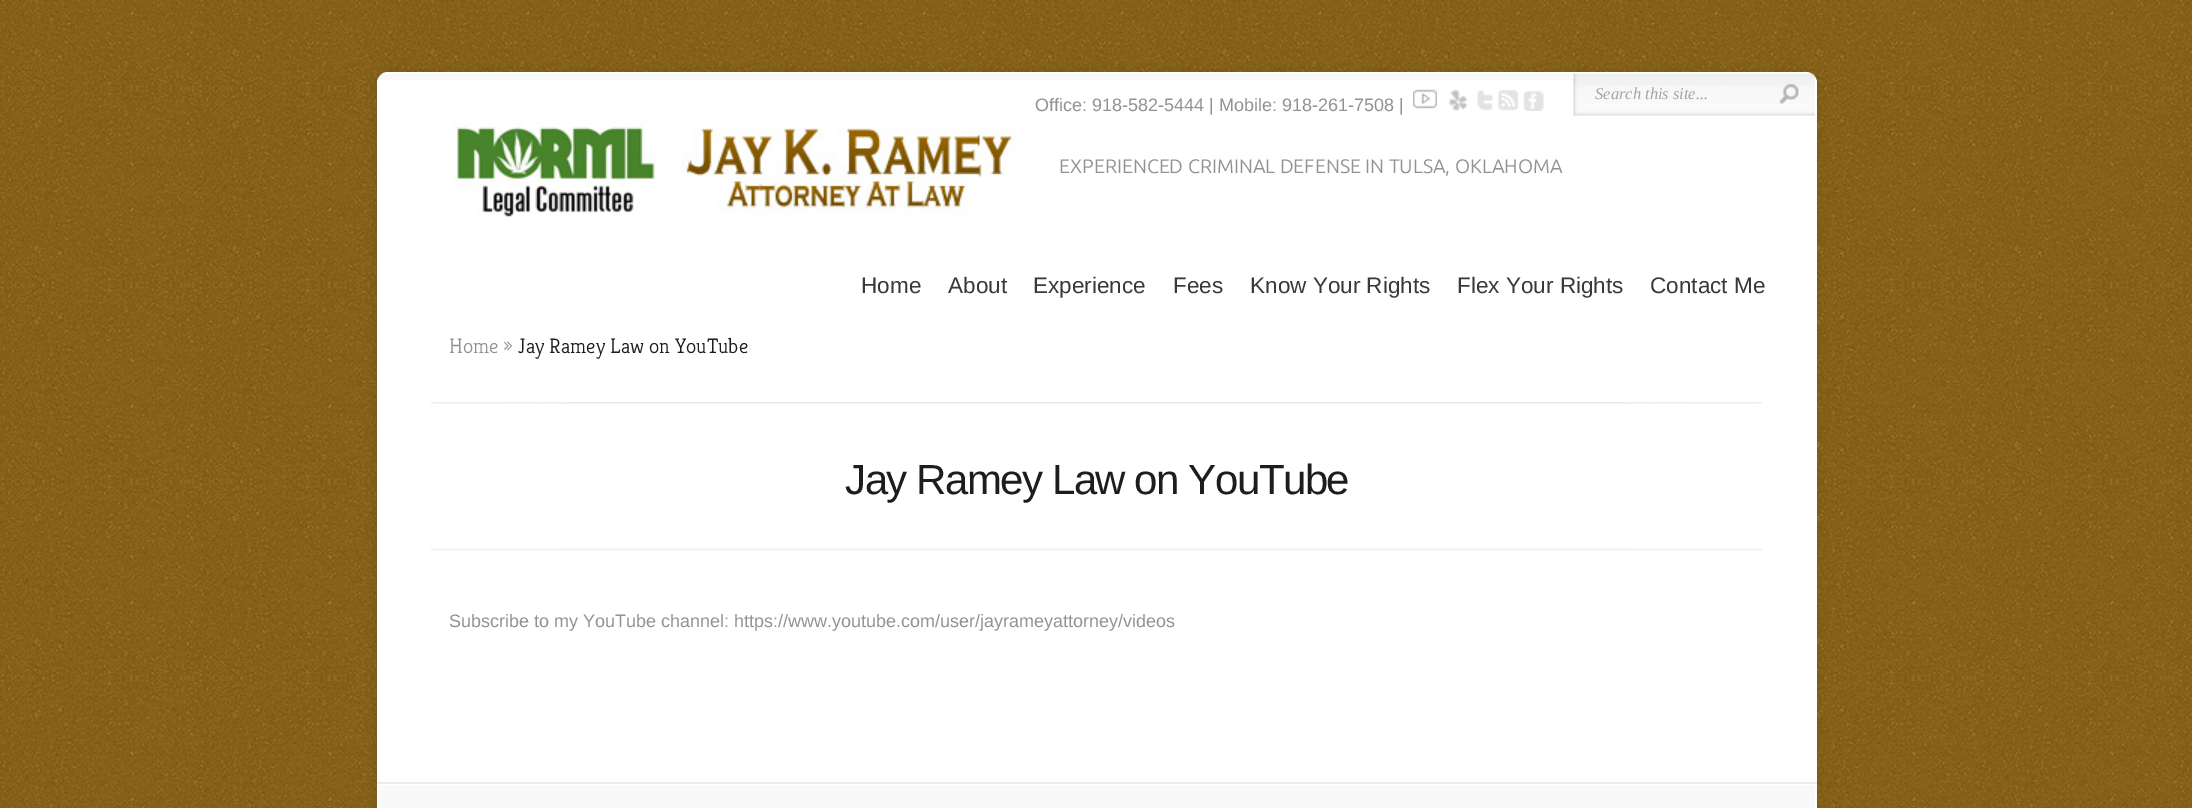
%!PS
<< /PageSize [2192 808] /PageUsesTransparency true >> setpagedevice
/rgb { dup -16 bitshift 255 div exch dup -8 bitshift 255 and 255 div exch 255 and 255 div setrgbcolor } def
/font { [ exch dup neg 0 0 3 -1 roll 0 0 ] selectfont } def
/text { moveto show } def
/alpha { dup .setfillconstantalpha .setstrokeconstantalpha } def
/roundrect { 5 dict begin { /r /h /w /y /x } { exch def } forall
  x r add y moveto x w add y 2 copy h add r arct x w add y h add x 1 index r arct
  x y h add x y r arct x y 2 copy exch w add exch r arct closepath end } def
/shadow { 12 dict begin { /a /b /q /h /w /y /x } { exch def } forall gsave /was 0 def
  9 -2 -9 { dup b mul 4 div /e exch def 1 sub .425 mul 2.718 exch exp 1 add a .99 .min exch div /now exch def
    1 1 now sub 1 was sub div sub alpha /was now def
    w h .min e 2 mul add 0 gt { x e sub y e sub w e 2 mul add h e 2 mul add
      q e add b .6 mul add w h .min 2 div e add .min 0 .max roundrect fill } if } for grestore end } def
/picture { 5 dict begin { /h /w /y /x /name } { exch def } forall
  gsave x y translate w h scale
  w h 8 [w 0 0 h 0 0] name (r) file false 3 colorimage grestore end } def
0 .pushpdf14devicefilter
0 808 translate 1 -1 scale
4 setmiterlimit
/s1 { /LiberationSerif-Italic 16.5 font 16#A3A3A3 rgb } def
/s2 { /LiberationSans-Regular 18 font 16#929292 rgb } def
/s3 { /Ubuntu-Regular 19.5 font 16#929292 rgb } def
/s4 { /LiberationSans-Regular 22.5 font 16#393939 rgb } def
/s5 { /Kreon-Light 21 font 16#929292 rgb } def
/s6 { /Kreon-Light 21 font 16#1D1D1D rgb } def
16#996600 rgb
0 0 2192 808 rectfill
(pic1.raw) 0 0 2192 808 picture
16#000000 rgb
377 72 1440 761 11 4.5 0.1 shadow
16#FFFFFF rgb
377 72 1440 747 11 roundrect fill
(pic2.raw) 378 74 1437 6 picture
(pic3.raw) 1573 73 242 43 picture
s1
(Search this site...) 1595 99 text
(pic4.raw) 1779 84 21 20 picture
s2
(Office: 918-582-5444 | Mobile: 918-261-7508 |) 1035 111 text
(pic5.raw) 1413 89 24 20 picture
(pic6.raw) 1448 90 20 21 picture
(pic7.raw) 1477 90 16 21 picture
(pic8.raw) 1497 90 21 21 picture
(pic9.raw) 1523 90 21 21 picture
(pic10.raw) 453 117 564 100 picture
s3
(EXPERIENCED CRIMINAL DEFENSE IN TULSA, OKLAHOMA) 1059 173 text
s4
(Home) 861 293 text
(About) 948 293 text
(Experience) 1033 293 text
(Fees) 1173 293 text
(Know Your Rights) 1250 293 text
(Flex Your Rights) 1457 293 text
(Contact Me) 1650 293 text
s5
(Home ») 449 353 text
s6
(Jay Ramey Law on YouTube) 518 353 text
(pic11.raw) 430 402 1333 2 picture
(pic12.raw) 430 547 1333 4 picture
/LiberationSans-Regular 42 font
845 494 moveto -1.5 0 (Jay Ramey Law on YouTube) ashow
s2
(Subscribe to my YouTube channel: https://www.youtube.com/user/jayrameyattorney/videos) 449 627 text
16#ECECEC rgb
377 782 1440 2 rectfill
16#F9F9F9 rgb
378 785 1437 23 rectfill
.poppdf14devicefilter showpage
